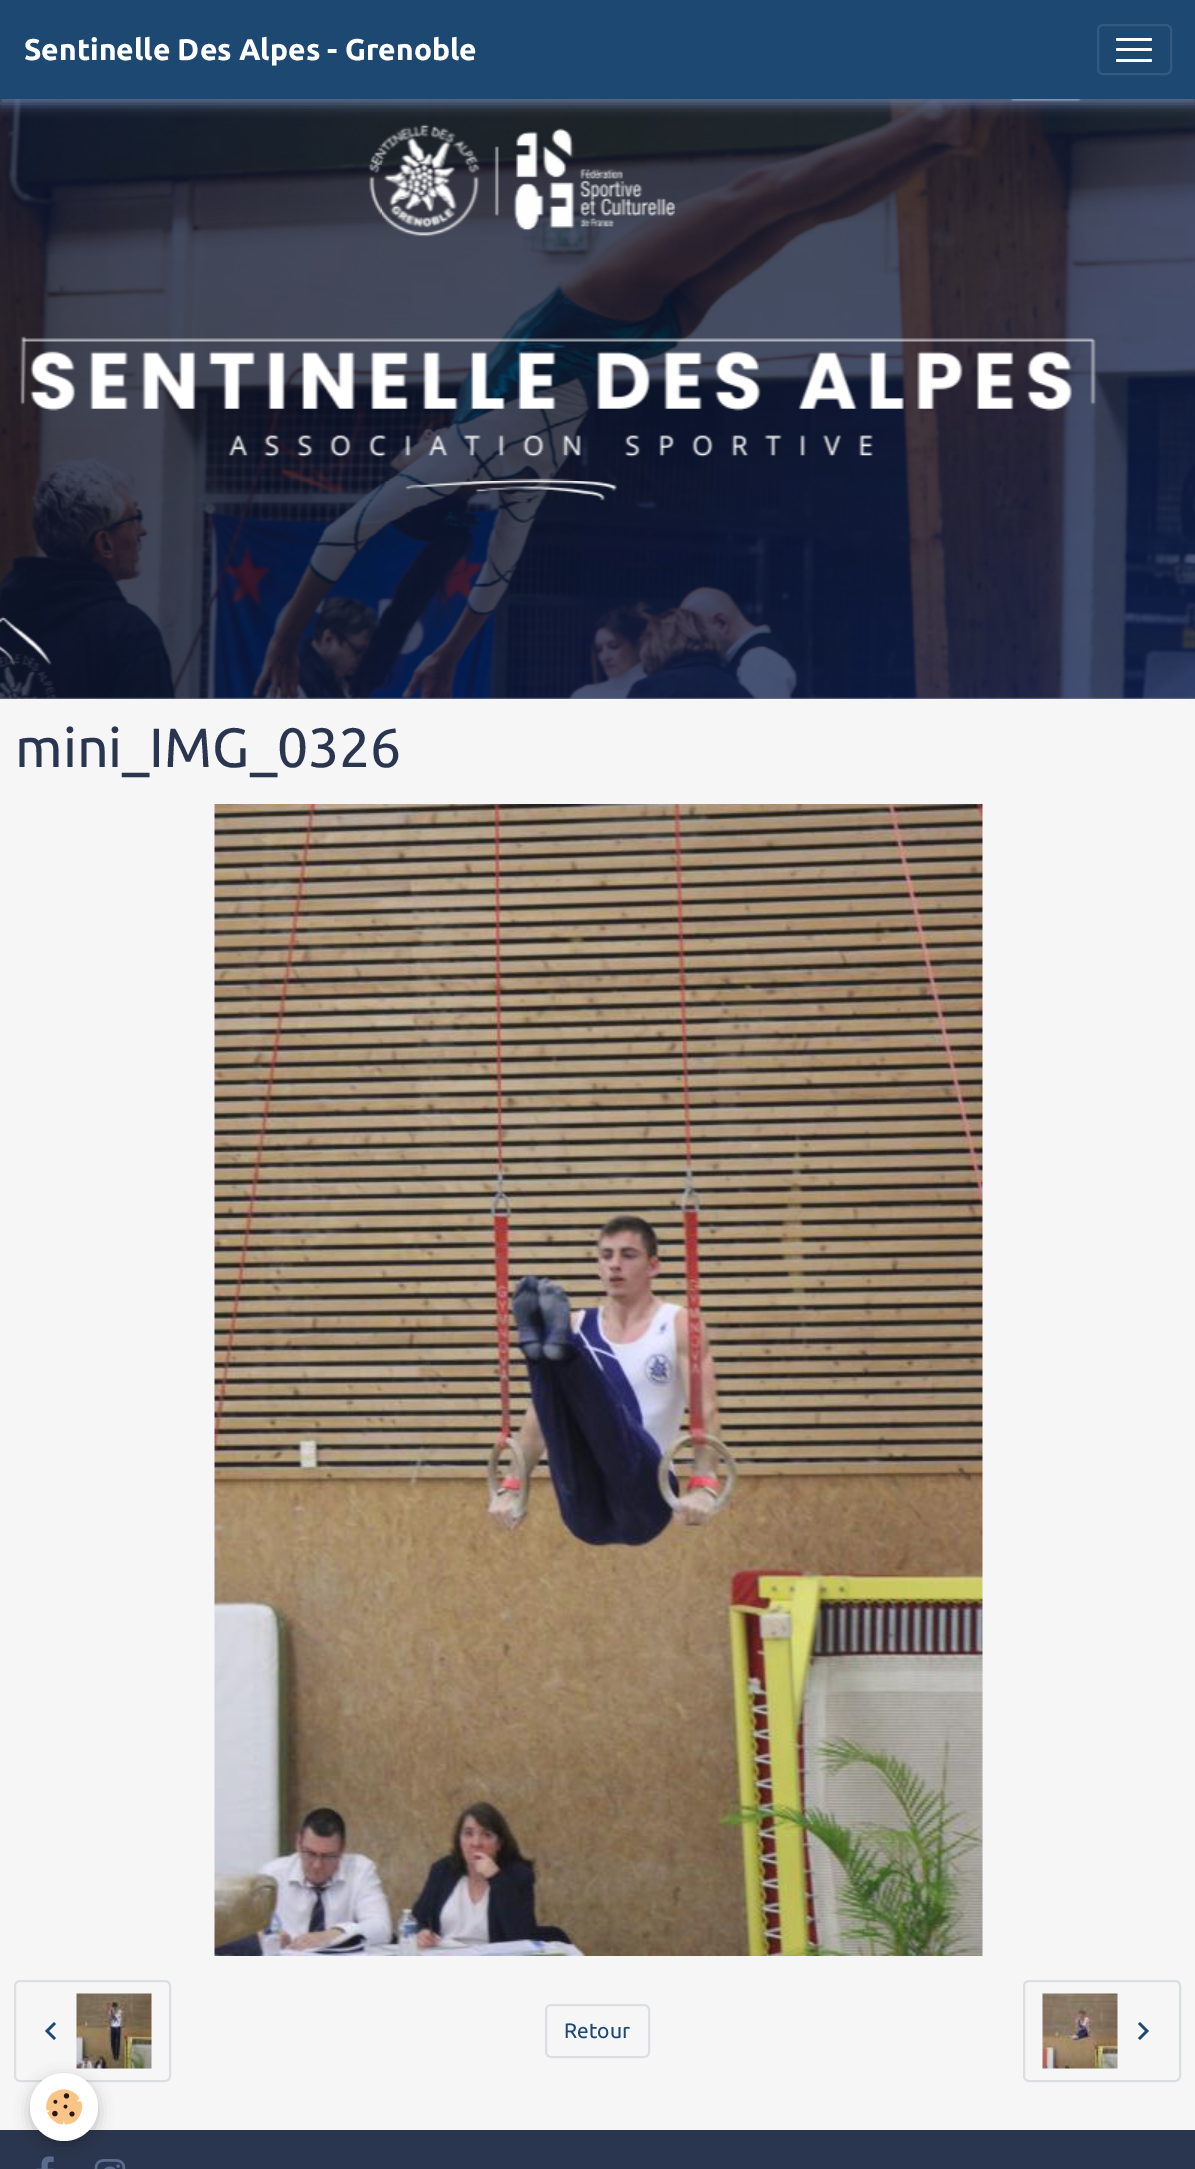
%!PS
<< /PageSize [1195 2169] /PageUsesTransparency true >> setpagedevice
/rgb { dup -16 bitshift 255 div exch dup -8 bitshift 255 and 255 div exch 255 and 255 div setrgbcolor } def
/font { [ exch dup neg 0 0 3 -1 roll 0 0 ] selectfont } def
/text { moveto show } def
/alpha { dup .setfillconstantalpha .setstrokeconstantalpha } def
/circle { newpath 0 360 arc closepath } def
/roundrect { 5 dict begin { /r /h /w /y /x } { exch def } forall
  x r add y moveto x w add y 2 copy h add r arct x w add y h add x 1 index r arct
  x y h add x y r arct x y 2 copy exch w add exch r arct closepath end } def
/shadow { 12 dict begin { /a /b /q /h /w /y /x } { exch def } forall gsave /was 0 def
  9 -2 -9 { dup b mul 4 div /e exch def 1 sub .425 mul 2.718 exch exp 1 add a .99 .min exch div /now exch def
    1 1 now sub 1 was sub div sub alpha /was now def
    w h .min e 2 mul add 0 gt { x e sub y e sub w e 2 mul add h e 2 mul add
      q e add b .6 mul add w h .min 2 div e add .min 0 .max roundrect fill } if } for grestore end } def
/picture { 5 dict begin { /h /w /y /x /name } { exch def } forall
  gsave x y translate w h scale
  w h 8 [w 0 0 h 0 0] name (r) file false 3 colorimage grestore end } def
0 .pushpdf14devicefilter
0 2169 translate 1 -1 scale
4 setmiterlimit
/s1 { /Ubuntu-Bold 30 font 16#FFFFFF rgb } def
/s2 { /Ubuntu-Regular 55.25 font 16#2A354F rgb } def
/s3 { /Ubuntu-Regular 21 font 16#1D4872 rgb } def
16#F6F6F7 rgb
0 0 1195 2169 rectfill
(pic1.raw) 0 99 1195 600 picture
16#62759B rgb
0 5 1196 99 0 6 1 shadow
16#1D4872 rgb
0 0 1195 99 rectfill
s1
(Sentinelle Des Alpes - Grenoble) 24 60 text
16#345A80 rgb
2 setlinewidth
1098 25 73 49 5 roundrect stroke
16#FFFFFF rgb
1116 38 36 3 1.5 roundrect fill
1116 48 36 3 1.5 roundrect fill
1116 59 36 3 1.5 roundrect fill
s2
(mini_IMG_0326) 15 767 text
(pic2.raw) 214 804 769 1152 picture
16#DBDFE2 rgb
15 1981 155 100 5 roundrect stroke
16#1D4872 rgb
56 2024 moveto 49 2031 lineto 56 2038 lineto 54 2040 lineto 45 2031 lineto 54 2022 lineto closepath fill
(pic3.raw) 76 1993 76 76 picture
16#DBDFE2 rgb
546 2005 103 52 5 roundrect stroke
s3
(Retour) 564 2038 text
16#DBDFE2 rgb
1024 1981 156 100 5 roundrect stroke
(pic4.raw) 1042 1993 76 76 picture
16#1D4872 rgb
1140 2022 moveto 1149 2031 lineto 1140 2040 lineto 1138 2038 lineto 1145 2031 lineto 1138 2024 lineto closepath fill
16#2A354F rgb
0 2130 1195 39 rectfill
(pic6.raw) 36 2156 18 13 picture
(pic7.raw) 94 2159 32 10 picture
16#000000 rgb
30 2078 68 67 33.5 7.5 0.24 shadow
16#FFFFFF rgb
64 2107 34 circle fill
(pic5.raw) 46 2089 37 36 picture
.poppdf14devicefilter showpage
